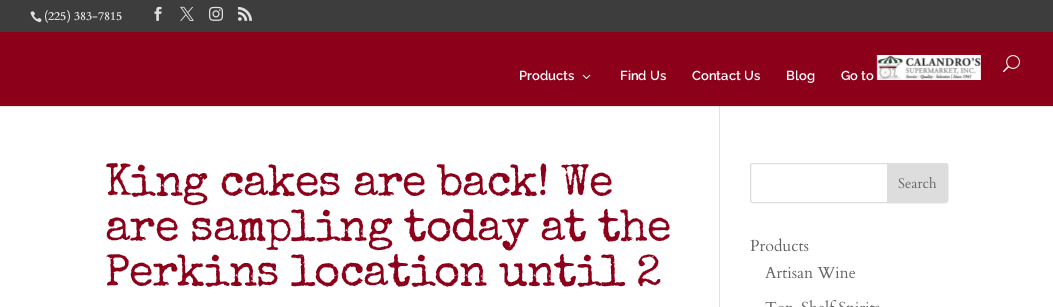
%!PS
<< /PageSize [1053 307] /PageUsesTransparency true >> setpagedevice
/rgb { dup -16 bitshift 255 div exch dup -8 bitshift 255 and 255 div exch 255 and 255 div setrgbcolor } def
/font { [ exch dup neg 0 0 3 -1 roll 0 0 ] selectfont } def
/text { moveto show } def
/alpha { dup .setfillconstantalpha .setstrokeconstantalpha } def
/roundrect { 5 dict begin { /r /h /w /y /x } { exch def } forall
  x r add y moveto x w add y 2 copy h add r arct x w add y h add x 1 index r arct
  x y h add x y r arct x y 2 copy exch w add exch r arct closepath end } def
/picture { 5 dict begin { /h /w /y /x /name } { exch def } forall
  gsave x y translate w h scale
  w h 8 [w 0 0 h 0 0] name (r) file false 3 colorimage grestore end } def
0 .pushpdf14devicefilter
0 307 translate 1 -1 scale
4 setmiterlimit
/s1 { /Cardo-Bold 12 font 16#E0E0E0 rgb } def
/s2 { /Raleway-SemiBold 13 font 16#FFFFFF rgb } def
16#FFFFFF rgb
0 0 1053 307 rectfill
16#3D3D3D rgb
0 0 1053 32 rectfill
(pic1.raw) 30 11 12 12 picture
s1
(\(225\) 383-7815) 44 20 text
(pic2.raw) 154 6 8 15 picture
(pic3.raw) 180 6 14 15 picture
(pic4.raw) 209 6 14 15 picture
(pic5.raw) 238 6 14 15 picture
16#E2E2E2 rgb
719 105 1 202 rectfill
0.1 alpha
16#000000 rgb
0 106 1053 1 rectfill
1 alpha
16#8C001A rgb
0 32 1053 74 rectfill
(pic6.raw) 1003 55 17 18 picture
s2
(Products) 519 80 text
(pic7.raw) 582 74 9 5 picture
(Find Us) 620 80 text
(Contact Us) 692 80 text
(Blog) 786 80 text
(Go to) 841 80 text
(pic8.raw) 876 55 105 25 picture
/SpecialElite-Regular 45 font
16#8C001A rgb
105 195 moveto -1 0 (King cakes are back! We) ashow
105 240 moveto -1 0 (are sampling today at the) ashow
105 285 moveto -1 0 (Perkins location until 2) ashow
16#DDDDDD rgb
750.5 163.5 197 39 2.5 roundrect stroke
887.5 163.5 moveto 945 163.5 lineto 946.5 163.5 947.5 164.5 947.5 166 curveto 947.5 200 lineto 947.5 201.5 946.5 202.5 945 202.5 curveto 887.5 202.5 lineto closepath gsave fill grestore
stroke
(pic9.raw) 898 176 39 13 picture
(pic10.raw) 750 238 59 14 picture
(pic11.raw) 765 267 91 12 picture
(pic12.raw) 765 300 115 7 picture
.poppdf14devicefilter showpage
